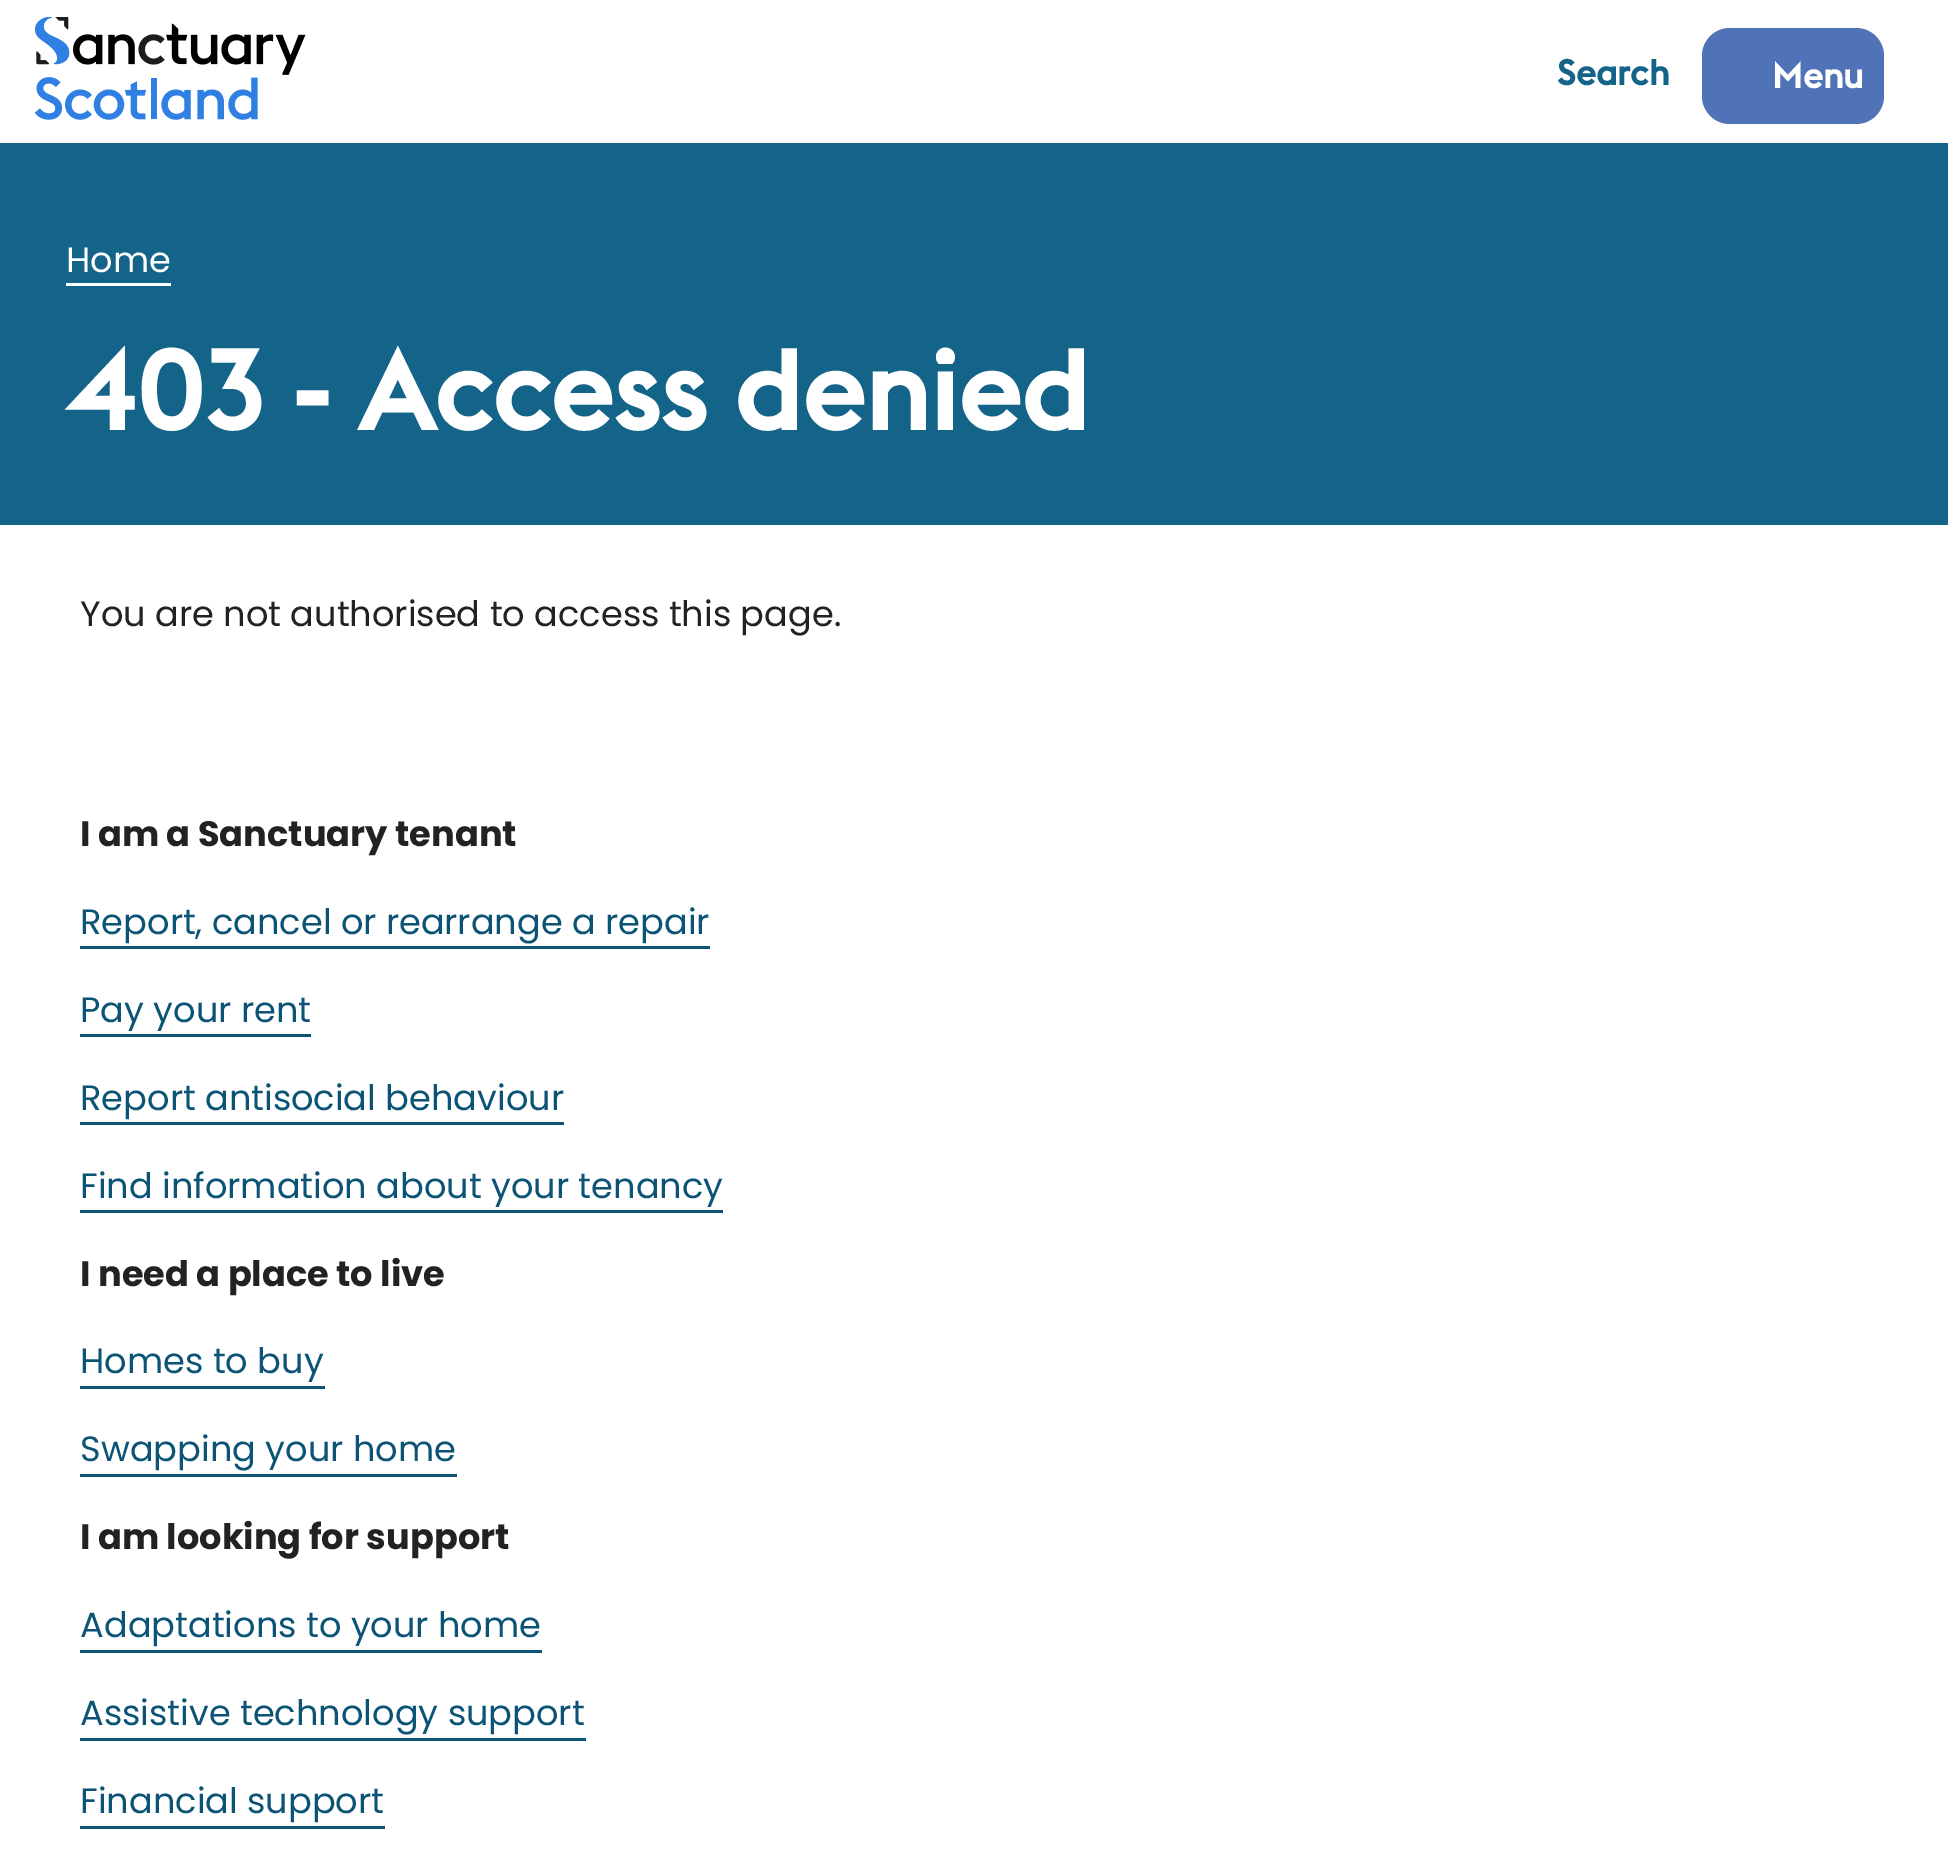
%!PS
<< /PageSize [1948 1866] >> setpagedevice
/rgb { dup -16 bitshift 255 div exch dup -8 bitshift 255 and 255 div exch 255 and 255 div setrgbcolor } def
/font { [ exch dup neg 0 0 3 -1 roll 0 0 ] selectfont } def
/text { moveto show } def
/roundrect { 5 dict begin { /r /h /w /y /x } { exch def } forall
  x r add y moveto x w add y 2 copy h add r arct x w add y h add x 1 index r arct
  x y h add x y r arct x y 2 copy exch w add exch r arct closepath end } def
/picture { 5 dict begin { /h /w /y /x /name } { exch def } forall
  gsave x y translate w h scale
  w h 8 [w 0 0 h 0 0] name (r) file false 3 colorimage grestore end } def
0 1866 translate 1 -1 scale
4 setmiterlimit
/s1 { /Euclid-Bold 35.2 font 16#146489 rgb } def
/s2 { /Euclid-Bold 35.2 font 16#FFFFFF rgb } def
/s3 { /Poppins-Regular 35.2 font 16#FFFFFF rgb } def
/s4 { /Euclid-Bold 110.9 font 16#FFFFFF rgb } def
/s5 { /Poppins-Regular 35.2 font 16#222221 rgb } def
/s6 { /Poppins-Bold 35.2 font 16#222221 rgb } def
/s7 { /Poppins-Regular 35.2 font 16#0C5475 rgb } def
16#FFFFFF rgb
0 0 1948 1866 rectfill
(pic1.raw) 34 17 272 103 picture
s1
(Search) 1557 85 text
16#4F73B6 rgb
1702 28 182 96 28 roundrect fill
s2
(Menu) 1772 88 text
16#146489 rgb
0 143 1948 382 rectfill
s3
(Home) 66 272 text
66 283 105 3 rectfill
s4
(403 - Access denied) 66 430 text
s5
(You are not authorised to access this page.) 80 626 text
s6
(I am a Sanctuary tenant) 80 846 text
s7
(Report, cancel or rearrange a repair) 80 934 text
80 946 630 3 rectfill
(Pay your rent) 80 1022 text
80 1034 231 3 rectfill
(Report antisocial behaviour) 80 1110 text
80 1122 484 3 rectfill
(Find information about your tenancy) 80 1198 text
80 1210 643 3 rectfill
s6
(I need a place to live) 80 1286 text
s7
(Homes to buy) 80 1373 text
80 1386 245 3 rectfill
(Swapping your home) 80 1461 text
80 1474 377 3 rectfill
s6
(I am looking for support) 80 1549 text
s7
(Adaptations to your home) 80 1637 text
80 1650 462 3 rectfill
(Assistive technology support) 80 1725 text
80 1738 506 3 rectfill
(Financial support) 80 1813 text
80 1826 305 3 rectfill
showpage
